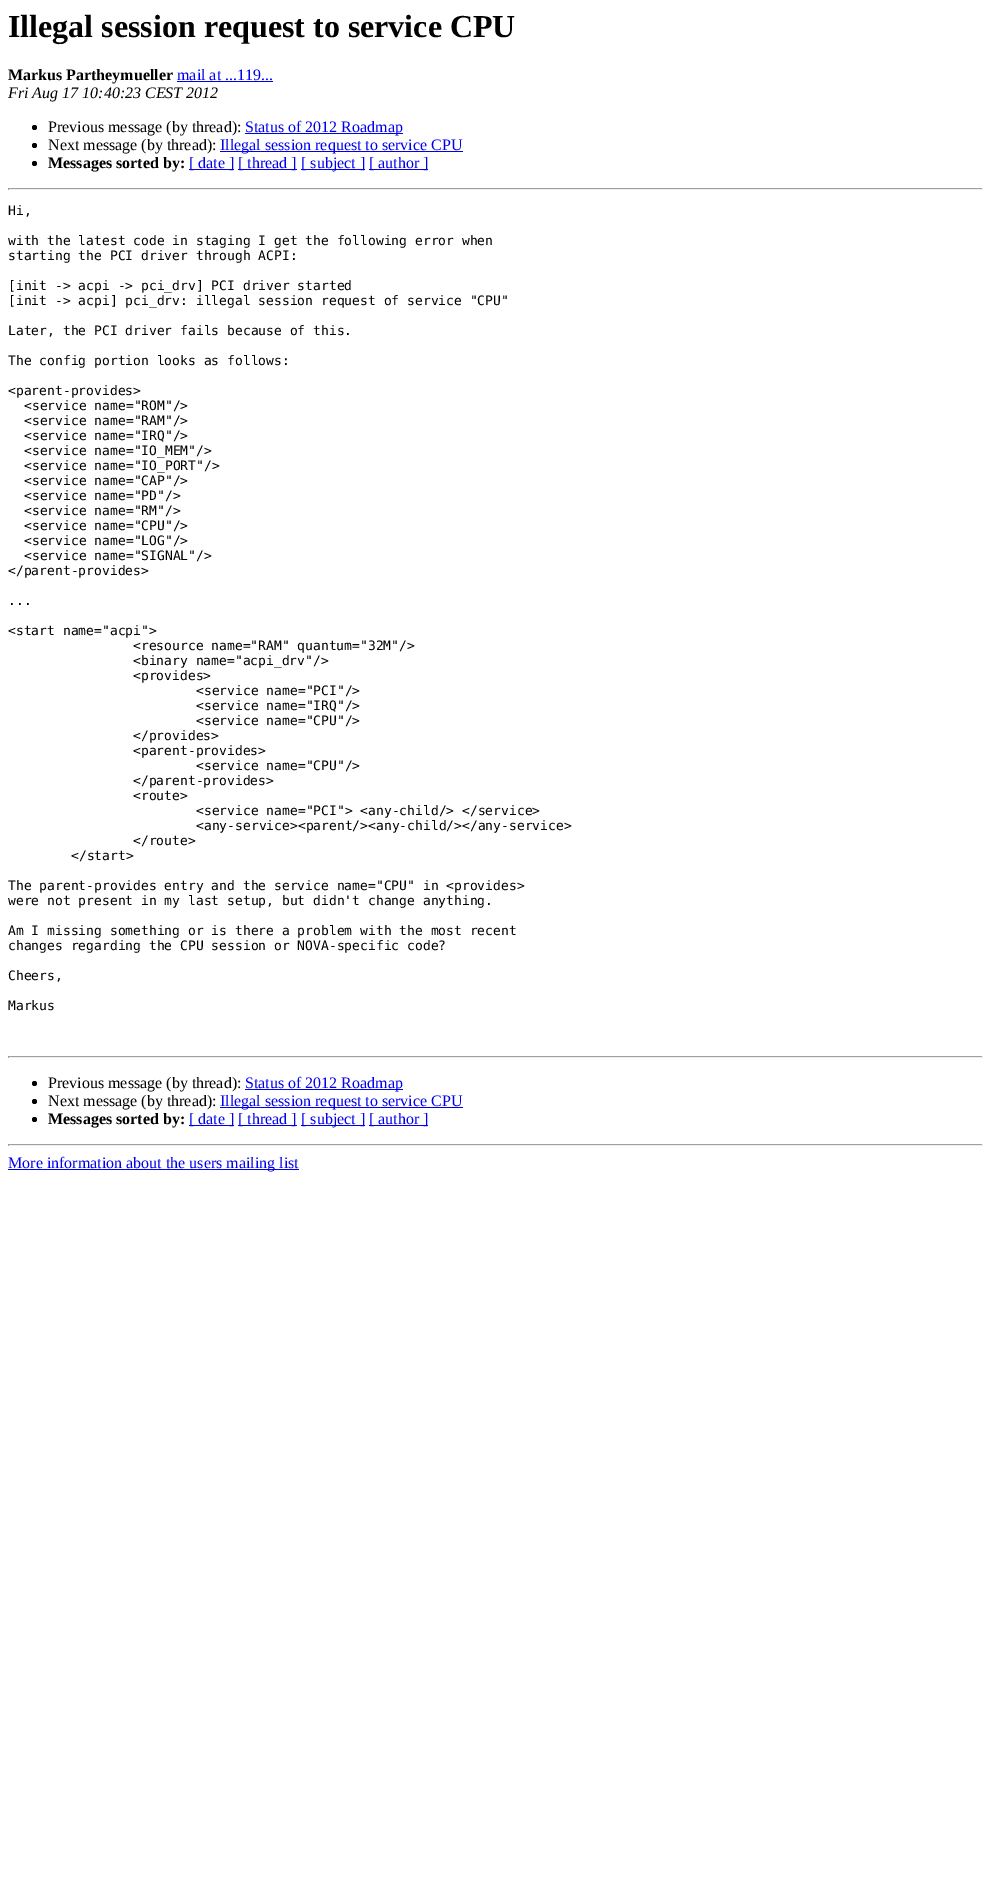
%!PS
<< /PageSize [991 1878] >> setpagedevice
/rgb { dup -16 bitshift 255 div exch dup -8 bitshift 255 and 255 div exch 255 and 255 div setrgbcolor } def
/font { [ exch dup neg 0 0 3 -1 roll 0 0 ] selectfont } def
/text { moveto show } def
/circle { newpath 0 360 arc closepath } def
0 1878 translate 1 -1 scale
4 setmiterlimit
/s1 { /LiberationSerif-Bold 32 font 16#000000 rgb } def
/s2 { /LiberationSerif-Bold 16 font 16#000000 rgb } def
/s3 { /LiberationSerif-Regular 16 font 16#0000EE rgb } def
/s4 { /LiberationSerif-Italic 16 font 16#000000 rgb } def
/s5 { /LiberationSerif-Regular 16 font 16#000000 rgb } def
/s6 { /DejaVuSansMono-Regular 13 font 16#000000 rgb } def
16#FFFFFF rgb
0 0 991 1878 rectfill
s1
(Illegal session request to service CPU) 8 37 text
s2
(Markus Partheymueller) 8 80 text
s3
(mail at ...119...) 177 80 text
177 81 96 1 rectfill
s4
(Fri Aug 17 10:40:23 CEST 2012) 8 98 text
34.5 127.5 2.5 circle fill
s5
(Previous message \(by thread\):) 48 132 text
16#0000EE rgb
245 133 158 1 rectfill
(Status of 2012 Roadmap) 245 132 text
16#000000 rgb
34.5 145.5 2.5 circle fill
(Next message \(by thread\):) 48 150 text
16#0000EE rgb
220 151 243 1 rectfill
(Illegal session request to service CPU) 220 150 text
16#000000 rgb
34.5 163.5 2.5 circle fill
s2
(Messages sorted by:) 48 168 text
16#0000EE rgb
189 169 45 1 rectfill
s3
([ date ]) 189 168 text
238 169 59 1 rectfill
([ thread ]) 238 168 text
301 169 64 1 rectfill
([ subject ]) 301 168 text
369 169 59 1 rectfill
([ author ]) 369 168 text
16#9F9F9F rgb
8 188 975 1 rectfill
16#EEEEEE rgb
982 188 1 2 rectfill
8 189 975 1 rectfill
16#9F9F9F rgb
8 188 1 2 rectfill
s6
(Hi,) 8 215 text
(with the latest code in staging I get the following error when) 8 245 text
(starting the PCI driver through ACPI:) 8 260 text
([init -> acpi -> pci_drv] PCI driver started) 8 290 text
([init -> acpi] pci_drv: illegal session request of service "CPU") 8 305 text
(Later, the PCI driver fails because of this.) 8 335 text
(The config portion looks as follows:) 8 365 text
(<parent-provides>) 8 395 text
(<service name="ROM"/>) 24 410 text
(<service name="RAM"/>) 24 425 text
(<service name="IRQ"/>) 24 440 text
(<service name="IO_MEM"/>) 24 455 text
(<service name="IO_PORT"/>) 24 470 text
(<service name="CAP"/>) 24 485 text
(<service name="PD"/>) 24 500 text
(<service name="RM"/>) 24 515 text
(<service name="CPU"/>) 24 530 text
(<service name="LOG"/>) 24 545 text
(<service name="SIGNAL"/>) 24 560 text
(</parent-provides>) 8 575 text
(...) 8 605 text
(<start name="acpi">) 8 635 text
(<resource name="RAM" quantum="32M"/>) 133 650 text
(<binary name="acpi_drv"/>) 133 665 text
(<provides>) 133 680 text
(<service name="PCI"/>) 196 695 text
(<service name="IRQ"/>) 196 710 text
(<service name="CPU"/>) 196 725 text
(</provides>) 133 740 text
(<parent-provides>) 133 755 text
(<service name="CPU"/>) 196 770 text
(</parent-provides>) 133 785 text
(<route>) 133 800 text
(<service name="PCI"> <any-child/> </service>) 196 815 text
(<any-service><parent/><any-child/></any-service>) 196 830 text
(</route>) 133 845 text
(</start>) 71 860 text
(The parent-provides entry and the service name="CPU" in <provides>) 8 890 text
(were not present in my last setup, but didn't change anything.) 8 905 text
(Am I missing something or is there a problem with the most recent) 8 935 text
(changes regarding the CPU session or NOVA-specific code?) 8 950 text
(Cheers,) 8 980 text
(Markus) 8 1010 text
16#9F9F9F rgb
8 1056 975 1 rectfill
16#EEEEEE rgb
982 1056 1 2 rectfill
8 1057 975 1 rectfill
16#9F9F9F rgb
8 1056 1 2 rectfill
16#000000 rgb
34.5 1083.5 2.5 circle fill
s5
(Previous message \(by thread\):) 48 1088 text
16#0000EE rgb
245 1089 158 1 rectfill
(Status of 2012 Roadmap) 245 1088 text
16#000000 rgb
34.5 1101.5 2.5 circle fill
(Next message \(by thread\):) 48 1106 text
16#0000EE rgb
220 1107 243 1 rectfill
(Illegal session request to service CPU) 220 1106 text
16#000000 rgb
34.5 1119.5 2.5 circle fill
s2
(Messages sorted by:) 48 1124 text
16#0000EE rgb
189 1125 45 1 rectfill
s3
([ date ]) 189 1124 text
238 1125 59 1 rectfill
([ thread ]) 238 1124 text
301 1125 64 1 rectfill
([ subject ]) 301 1124 text
369 1125 59 1 rectfill
([ author ]) 369 1124 text
16#9F9F9F rgb
8 1144 975 1 rectfill
16#EEEEEE rgb
982 1144 1 2 rectfill
8 1145 975 1 rectfill
16#9F9F9F rgb
8 1144 1 2 rectfill
16#0000EE rgb
8 1169 291 1 rectfill
(More information about the users mailing list) 8 1168 text
showpage
